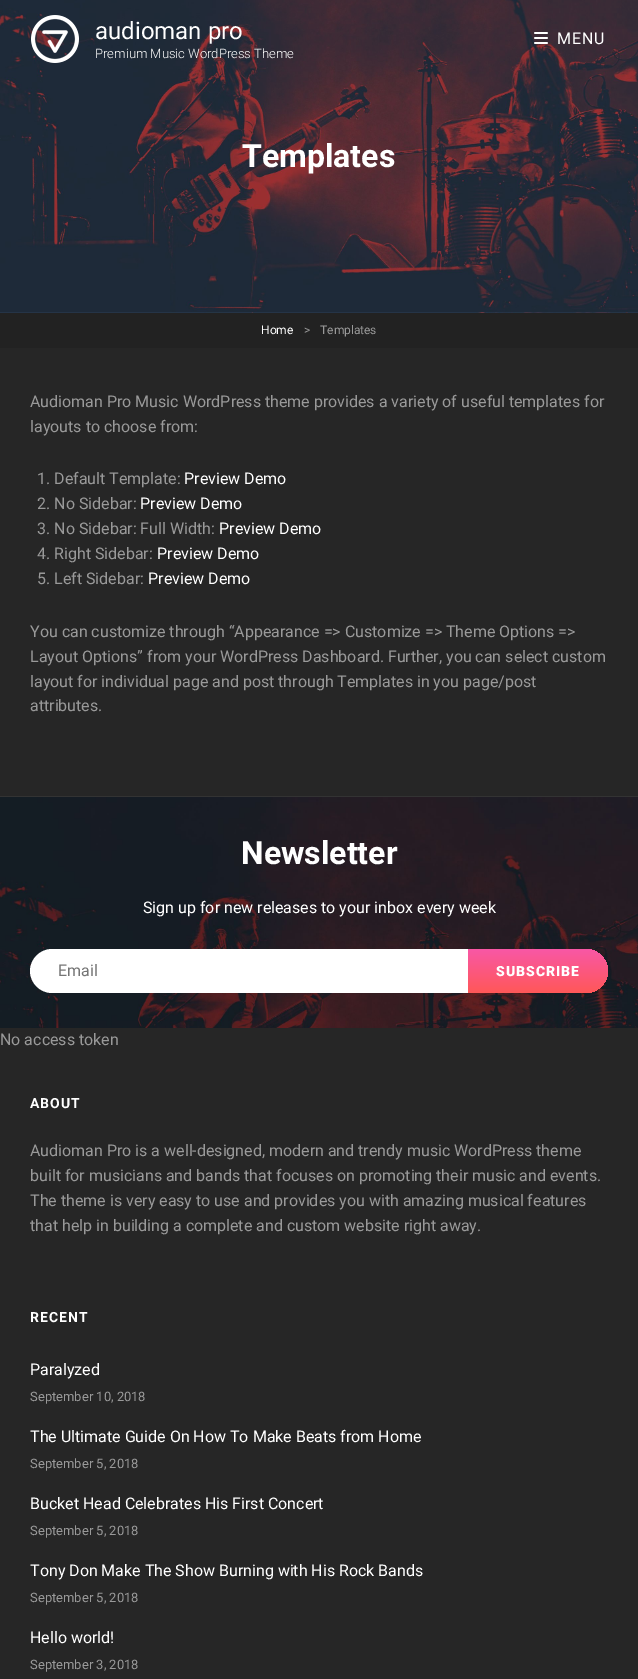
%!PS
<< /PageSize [638 1679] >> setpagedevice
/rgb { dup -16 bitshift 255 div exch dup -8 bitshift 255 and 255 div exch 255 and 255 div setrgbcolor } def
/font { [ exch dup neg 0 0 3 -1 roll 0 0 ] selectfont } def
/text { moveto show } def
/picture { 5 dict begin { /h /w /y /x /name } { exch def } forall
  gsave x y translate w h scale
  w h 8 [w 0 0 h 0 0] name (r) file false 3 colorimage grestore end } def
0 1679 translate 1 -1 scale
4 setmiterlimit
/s1 { /Roboto-Regular 24 font 16#FFFFFF rgb } def
/s2 { /Roboto-Light 13 font 16#FFFFFF rgb } def
/s3 { /Roboto-Bold 32 font 16#FFFFFF rgb } def
/s4 { /Roboto-Regular 12 font 16#FFFFFF rgb } def
/s5 { /Roboto-Regular 12 font 16#999999 rgb } def
/s6 { /Roboto-Regular 16 font 16#999999 rgb } def
/s7 { /Roboto-Regular 16 font 16#FFFFFF rgb } def
/s8 { /Roboto-Regular 16 font 16#757575 rgb } def
/s9 { /Roboto-Regular 13 font 16#999999 rgb } def
16#262626 rgb
0 0 638 1679 rectfill
(pic3.raw) 0 0 638 312 picture
(pic1.raw) 31 15 48 48 picture
s1
(audioman pro) 95 39 text
s2
(Premium Music WordPress Theme) 95 58 text
(pic2.raw) 534 32 14 12 picture
/Roboto-Regular 16 font
557 44 moveto 1 0 (MENU) ashow
s3
(Templates) 242 167 text
(pic4.raw) 0 312 638 1 picture
16#222222 rgb
0 313 638 35 rectfill
s4
(Home) 261 334 text
s5
(>) 304 334 text
(Templates) 320 334 text
16#333333 rgb
0 796 638 1 rectfill
s6
(Audioman Pro Music WordPress theme provides a variety of useful templates for) 30 407 text
(layouts to choose from:) 30 432 text
(1. Default Template:) 37 484 text
s7
(Preview Demo) 184 484 text
s6
(2. No Sidebar:) 37 509 text
s7
(Preview Demo) 140 509 text
s6
(3. No Sidebar: Full Width:) 37 534 text
s7
(Preview Demo) 219 534 text
s6
(4. Right Sidebar:) 37 559 text
s7
(Preview Demo) 157 559 text
s6
(5. Left Sidebar:) 37 584 text
s7
(Preview Demo) 148 584 text
s6
(You can customize through “Appearance => Customize => Theme Options =>) 30 637 text
(Layout Options” from your WordPress Dashboard. Further, you can select custom) 30 662 text
(layout for individual page and post through Templates in you page/post) 30 687 text
(attributes.) 30 711 text
(pic5.raw) 0 797 638 231 picture
s3
(Newsletter) 241 864 text
s7
(Sign up for new releases to your inbox every week) 143 913 text
52 949 moveto 468 949 lineto 468 993 lineto 52 993 lineto 40 993 30 983 30 971 curveto 30 959 40 949 52 949 curveto closepath fill
s8
(Email) 58 976 text
gsave 468 949 moveto 586 949 lineto 598 949 608 959 608 971 curveto 608 983 598 993 586 993 curveto 468 993 lineto closepath clip newpath
<< /ShadingType 2 /ColorSpace /DeviceRGB /Coords [538 949 538 993] /Extend [true true] /Function << /FunctionType 2 /Domain [0 1] /C0 [0.973 0.341 0.651] /C1 [1 0.345 0.345] /N 1 >> >> shfill grestore
/Roboto-Black 14 font
16#FFFFFF rgb
496 976 moveto 1 0 (SUBSCRIBE) ashow
s6
(No access token) 0 1045 text
/Roboto-Bold 14 font
16#FFFFFF rgb
30 1108 moveto 1 0 (ABOUT) ashow
s6
(Audioman Pro is a well-designed, modern and trendy music WordPress theme) 30 1156 text
(built for musicians and bands that focuses on promoting their music and events.) 30 1181 text
(The theme is very easy to use and provides you with amazing musical features) 30 1206 text
(that help in building a complete and custom website right away.) 30 1231 text
/Roboto-Bold 14 font
16#FFFFFF rgb
30 1322 moveto 1 0 (RECENT) ashow
s7
(Paralyzed) 30 1375 text
s9
(September 10, 2018) 30 1401 text
s7
(The Ultimate Guide On How To Make Beats from Home) 30 1442 text
s9
(September 5, 2018) 30 1468 text
s7
(Bucket Head Celebrates His First Concert) 30 1509 text
s9
(September 5, 2018) 30 1535 text
s7
(Tony Don Make The Show Burning with His Rock Bands) 30 1576 text
s9
(September 5, 2018) 30 1602 text
s7
(Hello world!) 30 1643 text
s9
(September 3, 2018) 30 1669 text
showpage
